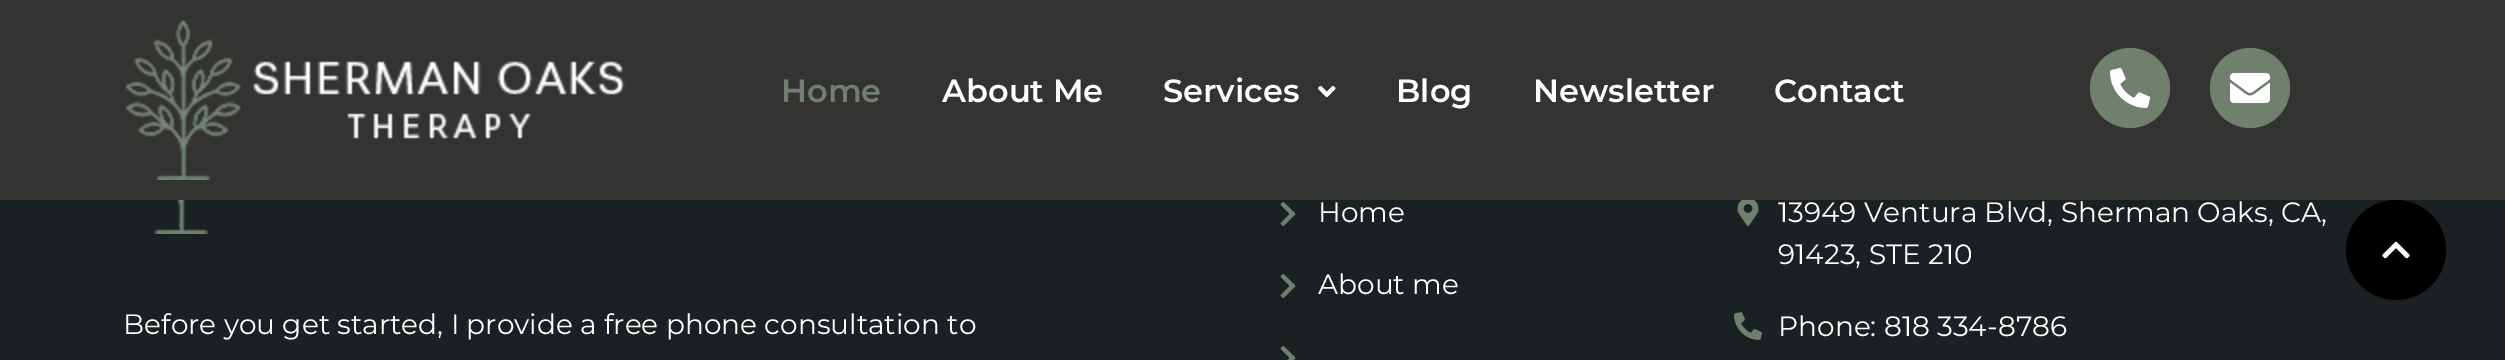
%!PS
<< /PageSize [2505 360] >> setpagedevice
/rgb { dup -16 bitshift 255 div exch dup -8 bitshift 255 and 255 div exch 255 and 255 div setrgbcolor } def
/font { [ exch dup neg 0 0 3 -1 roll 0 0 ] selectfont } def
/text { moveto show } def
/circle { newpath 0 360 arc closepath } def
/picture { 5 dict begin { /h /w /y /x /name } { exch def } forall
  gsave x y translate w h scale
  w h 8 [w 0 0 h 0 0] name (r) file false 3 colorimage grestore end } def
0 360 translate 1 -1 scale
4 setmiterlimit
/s1 { /Montserrat-SemiBold 32 font 16#717F6F rgb } def
/s2 { /Montserrat-SemiBold 32 font 16#FFFFFF rgb } def
/s3 { /Montserrat-Regular 28 font 16#FFFFFF rgb } def
16#1B2122 rgb
0 0 2505 360 rectfill
16#333332 rgb
0 0 2505 200 rectfill
(pic1.raw) 126 20 499 160 picture
s1
(Home) 781 102 text
s2
(About Me) 942 102 text
(Services) 1163 102 text
(pic2.raw) 1318 85 18 13 picture
(Blog) 1396 102 text
(Newsletter) 1533 102 text
(Contact) 1774 102 text
16#717F6F rgb
2130 88 40 circle fill
(pic3.raw) 2110 68 40 40 picture
2250 88 40 circle fill
(pic4.raw) 2230 73 40 30 picture
(pic5.raw) 1280 202 16 24 picture
s3
(Home) 1318 222 text
(pic5.raw) 1280 274 16 24 picture
(About me) 1318 294 text
(pic6.raw) 1280 346 16 14 picture
(pic7.raw) 1737 200 22 26 picture
(13949 Ventura Blvd, Sherman Oaks, CA,) 1778 222 text
(91423, STE 210) 1778 264 text
(pic8.raw) 1734 312 28 28 picture
(Phone: 818 334-8786) 1778 336 text
(pic9.raw) 153 200 56 34 picture
(Before you get started, I provide a free phone consultation to) 123 334 text
16#000000 rgb
2396 250 50 circle fill
(pic10.raw) 2382 241 28 18 picture
showpage
